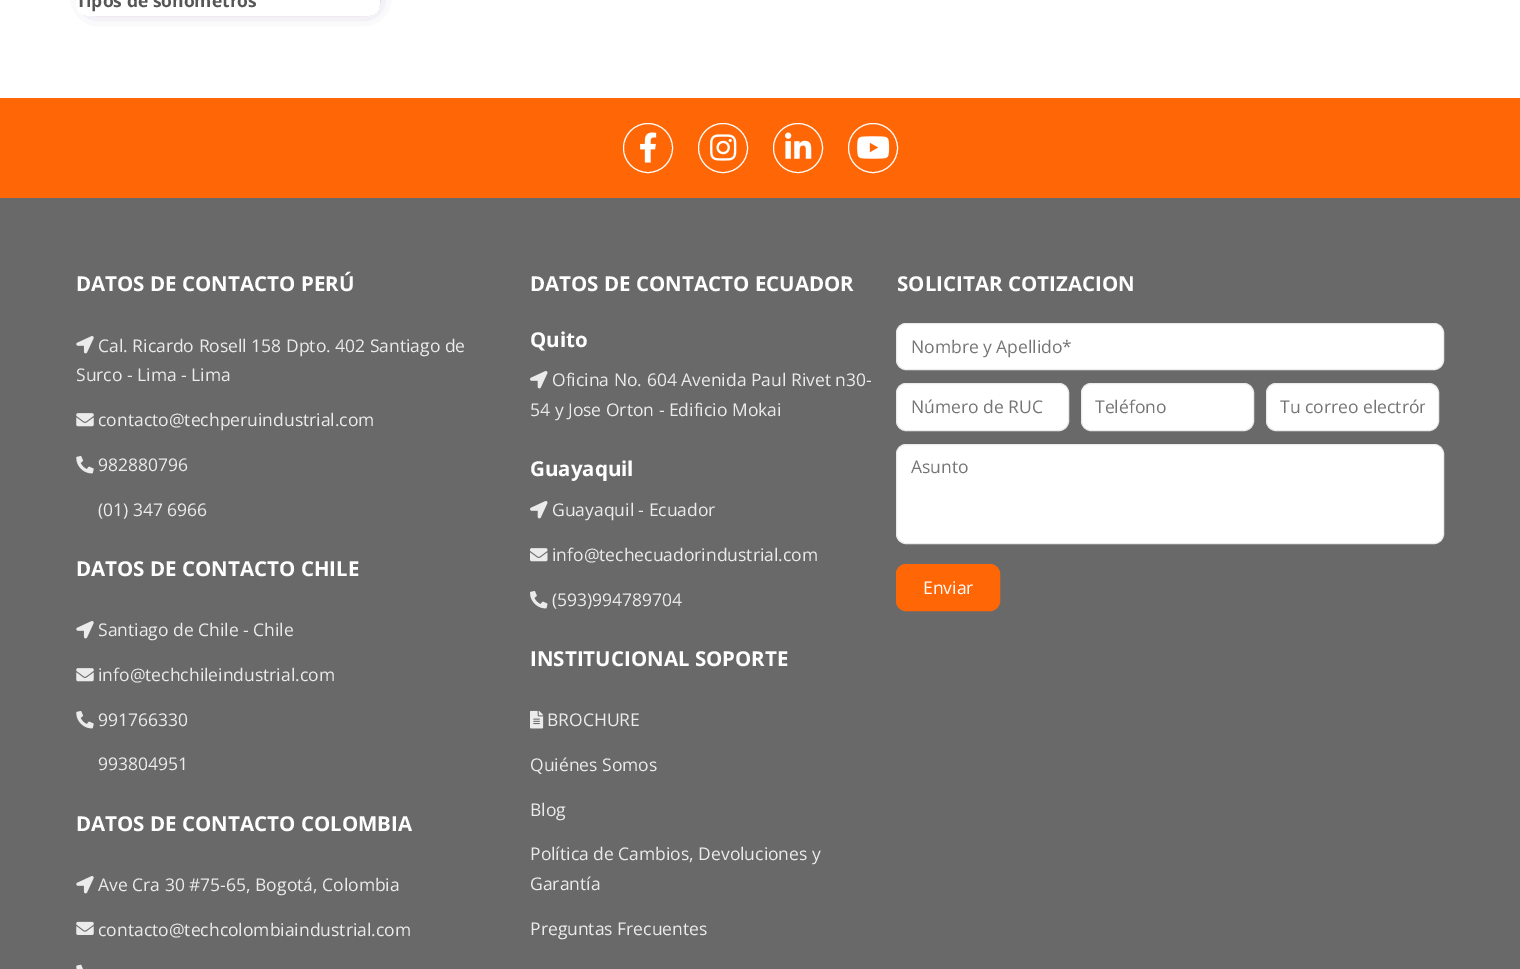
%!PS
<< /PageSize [1520 969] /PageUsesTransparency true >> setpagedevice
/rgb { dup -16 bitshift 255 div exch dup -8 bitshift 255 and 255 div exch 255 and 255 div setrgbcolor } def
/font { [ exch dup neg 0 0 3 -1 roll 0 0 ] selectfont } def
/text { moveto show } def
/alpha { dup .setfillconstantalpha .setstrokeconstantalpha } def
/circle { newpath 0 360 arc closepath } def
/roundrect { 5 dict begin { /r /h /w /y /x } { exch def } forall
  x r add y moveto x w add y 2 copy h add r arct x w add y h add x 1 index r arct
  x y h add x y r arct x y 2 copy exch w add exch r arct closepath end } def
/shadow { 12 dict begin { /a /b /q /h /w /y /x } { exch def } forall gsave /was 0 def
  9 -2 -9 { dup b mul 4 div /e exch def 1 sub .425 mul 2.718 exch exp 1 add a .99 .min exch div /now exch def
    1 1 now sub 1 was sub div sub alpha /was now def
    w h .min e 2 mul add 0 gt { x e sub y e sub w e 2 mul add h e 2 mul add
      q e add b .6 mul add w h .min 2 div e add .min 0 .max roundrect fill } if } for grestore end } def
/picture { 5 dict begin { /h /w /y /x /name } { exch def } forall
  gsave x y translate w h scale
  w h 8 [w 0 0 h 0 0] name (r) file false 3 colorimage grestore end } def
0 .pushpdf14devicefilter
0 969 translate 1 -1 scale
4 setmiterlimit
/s1 { /OpenSans-Bold 17.5 font 16#565656 rgb } def
/s2 { /OpenSans-Bold 20.5 font 16#FFFFFF rgb } def
/s3 { /OpenSans-Regular 17.5 font 16#EBEBEB rgb } def
/s4 { /OpenSans-Regular 17.5 font 16#757575 rgb } def
/s5 { /OpenSans-Regular 17.5 font 16#FFFFFF rgb } def
16#FFFFFF rgb
0 0 1520 969 rectfill
gsave
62 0 moveto 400 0 lineto 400 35 lineto 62 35 lineto closepath 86 -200 moveto 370 -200 lineto 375.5 -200 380 -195.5 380 -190 curveto 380 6 lineto 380 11.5 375.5 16 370 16 curveto 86 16 lineto 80.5 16 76 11.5 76 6 curveto 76 -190 lineto 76 -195.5 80.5 -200 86 -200 curveto closepath eoclip newpath
16#5C4D70 rgb
93 -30 276 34 0 10 1 shadow
grestore
s1
(Tipos de sonómetros) 76 7 text
16#FF6706 rgb
0 98 1520 100 rectfill
16#FFFFFF rgb
648 148 24.5 circle stroke
(pic1.raw) 640 132 17 31 picture
723 148 24.5 circle stroke
(pic2.raw) 710 134 27 27 picture
798 148 24.5 circle stroke
(pic3.raw) 785 132 27 27 picture
873 148 24.5 circle stroke
(pic4.raw) 857 136 33 23 picture
16#696969 rgb
0 198 1520 771 rectfill
s2
(DATOS DE CONTACTO PERÚ) 76 291 text
(pic5.raw) 76 336 18 18 picture
s3
(Cal. Ricardo Rosell 158 Dpto. 402 Santiago de) 98 352 text
(Surco - Lima - Lima) 76 381 text
(pic6.raw) 76 413 18 14 picture
(contacto@techperuindustrial.com) 98 426 text
(pic7.raw) 76 456 18 18 picture
(982880796) 98 471 text
(\(01\) 347 6966) 98 516 text
s2
(DATOS DE CONTACTO CHILE) 76 576 text
(pic5.raw) 76 621 18 18 picture
s3
(Santiago de Chile - Chile) 98 636 text
(pic6.raw) 76 668 18 14 picture
(info@techchileindustrial.com) 98 681 text
(pic7.raw) 76 711 18 18 picture
(991766330) 98 726 text
(993804951) 98 770 text
s2
(DATOS DE CONTACTO COLOMBIA) 76 831 text
(pic5.raw) 76 876 18 18 picture
s3
(Ave Cra 30 #75-65, Bogotá, Colombia) 98 891 text
(pic8.raw) 76 921 18 14 picture
(contacto@techcolombiaindustrial.com) 98 936 text
(pic9.raw) 76 964 7 5 picture
s2
(DATOS DE CONTACTO ECUADOR) 530 291 text
(Quito) 530 347 text
(pic10.raw) 530 371 18 18 picture
s3
(Oficina No. 604 Avenida Paul Rivet n30-) 552 386 text
(54 y Jose Orton - Edificio Mokai) 530 416 text
s2
(Guayaquil) 530 476 text
(pic10.raw) 530 501 18 18 picture
s3
(Guayaquil - Ecuador) 552 516 text
(pic11.raw) 530 548 18 14 picture
(info@techecuadorindustrial.com) 552 561 text
(pic12.raw) 530 591 18 18 picture
(\(593\)994789704) 552 606 text
s2
(INSTITUCIONAL SOPORTE) 530 666 text
(pic13.raw) 530 710 14 19 picture
s3
(BROCHURE) 547 726 text
(Quiénes Somos) 530 771 text
(Blog) 530 816 text
(Política de Cambios, Devoluciones y) 530 860 text
(Garantía) 530 890 text
(Preguntas Frecuentes) 530 935 text
s2
(SOLICITAR COTIZACION) 897 291 text
896.5 323.5 547 46 9.5 roundrect gsave fill grestore
16#EBEBEB rgb
stroke
s4
(Nombre y Apellido*) 911 353 text
16#FFFFFF rgb
896.5 383.5 172 47 9.5 roundrect gsave fill grestore
16#EBEBEB rgb
stroke
s4
(Número de RUC) 911 413 text
16#FFFFFF rgb
1081.5 383.5 172 47 9.5 roundrect gsave fill grestore
16#EBEBEB rgb
stroke
s4
(Teléfono) 1095 413 text
16#FFFFFF rgb
1266.5 383.5 172 47 9.5 roundrect gsave fill grestore
16#EBEBEB rgb
stroke
gsave
1280 394 145 24 rectclip
s4
(Tu correo electrón) 1280 413 text
grestore
16#FFFFFF rgb
896.5 444.5 547 99 9.5 roundrect gsave fill grestore
16#EBEBEB rgb
stroke
s4
(Asunto) 911 473 text
16#FF6706 rgb
896.5 564.5 103 46 9.5 roundrect gsave fill grestore
stroke
s5
(Enviar) 923 594 text
.poppdf14devicefilter showpage
